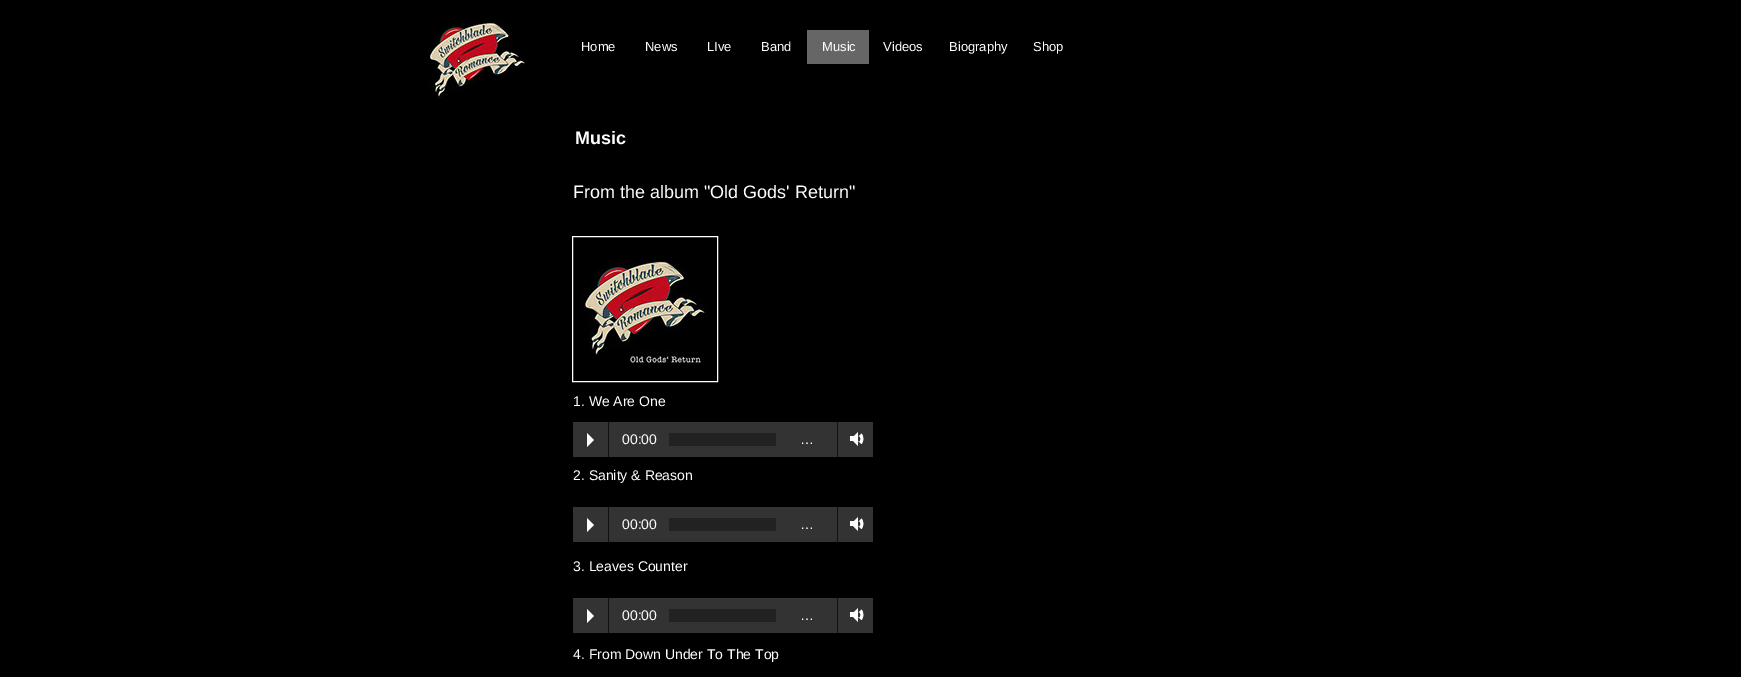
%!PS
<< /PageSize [1741 677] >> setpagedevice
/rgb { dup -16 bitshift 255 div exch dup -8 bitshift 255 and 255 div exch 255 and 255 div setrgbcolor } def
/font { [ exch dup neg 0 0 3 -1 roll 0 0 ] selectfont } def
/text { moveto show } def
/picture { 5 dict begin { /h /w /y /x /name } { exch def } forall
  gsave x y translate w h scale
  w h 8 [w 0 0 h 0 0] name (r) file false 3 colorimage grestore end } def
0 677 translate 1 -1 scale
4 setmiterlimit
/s1 { /LiberationSans-Regular 13 font 16#FFFFFF rgb } def
/s2 { /LiberationSans-Bold 18 font 16#FFFFFF rgb } def
/s3 { /LiberationSans-Regular 18 font 16#FFFFFF rgb } def
/s4 { /LiberationSans-Regular 14 font 16#FFFFFF rgb } def
16#000000 rgb
0 0 1741 677 rectfill
(pic1.raw) 428 20 97 79 picture
s1
(Home) 581 51 text
(News) 645 51 text
(LIve) 707 51 text
(Band) 761 51 text
16#666666 rgb
807 30 62 34 rectfill
s1
(Music) 822 51 text
(Videos) 883 51 text
(Biography) 949 51 text
(Shop) 1033 51 text
s2
(Music) 575 144 text
s3
(From the album "Old Gods' Return") 573 198 text
(pic2.raw) 581 261 128 104 picture
572.5 236.5 145 145 rectstroke
s4
(1. We Are One) 573 406 text
16#333333 rgb
573 422 300 35 rectfill
16#FFFFFF rgb
587 447 moveto 587 433 lineto 594 440 lineto closepath fill
16#111111 rgb
608 422 1 35 rectfill
s4
(00:00) 622 444 text
16#222222 rgb
669 433 107 13 rectfill
s4
(…) 800 444 text
16#111111 rgb
837 422 1 35 rectfill
16#FFFFFF rgb
850 436 4 5 rectfill
861.5 433.5 moveto 864 436.5 864 441 861.5 444 curveto 856 439 lineto closepath 859 436 moveto 861 437.5 861 440.5 859 442 curveto 856 439 lineto closepath eofill
858 432 moveto 858 446 lineto 851 439 lineto closepath fill
(2. Sanity & Reason) 573 480 text
16#333333 rgb
573 507 300 35 rectfill
16#FFFFFF rgb
587 532 moveto 587 518 lineto 594 525 lineto closepath fill
16#111111 rgb
608 507 1 35 rectfill
s4
(00:00) 622 529 text
16#222222 rgb
669 518 107 13 rectfill
s4
(…) 800 529 text
16#111111 rgb
837 507 1 35 rectfill
16#FFFFFF rgb
850 521 4 5 rectfill
861.5 518.5 moveto 864 521.5 864 526 861.5 529 curveto 856 524 lineto closepath 859 521 moveto 861 522.5 861 525.5 859 527 curveto 856 524 lineto closepath eofill
858 517 moveto 858 531 lineto 851 524 lineto closepath fill
(3. Leaves Counter) 573 571 text
16#333333 rgb
573 598 300 35 rectfill
16#FFFFFF rgb
587 623 moveto 587 609 lineto 594 616 lineto closepath fill
16#111111 rgb
608 598 1 35 rectfill
s4
(00:00) 622 620 text
16#222222 rgb
669 609 107 13 rectfill
s4
(…) 800 620 text
16#111111 rgb
837 598 1 35 rectfill
16#FFFFFF rgb
850 612 4 5 rectfill
861.5 609.5 moveto 864 612.5 864 617 861.5 620 curveto 856 615 lineto closepath 859 612 moveto 861 613.5 861 616.5 859 618 curveto 856 615 lineto closepath eofill
858 608 moveto 858 622 lineto 851 615 lineto closepath fill
(4. From Down Under To The Top) 573 659 text
showpage
